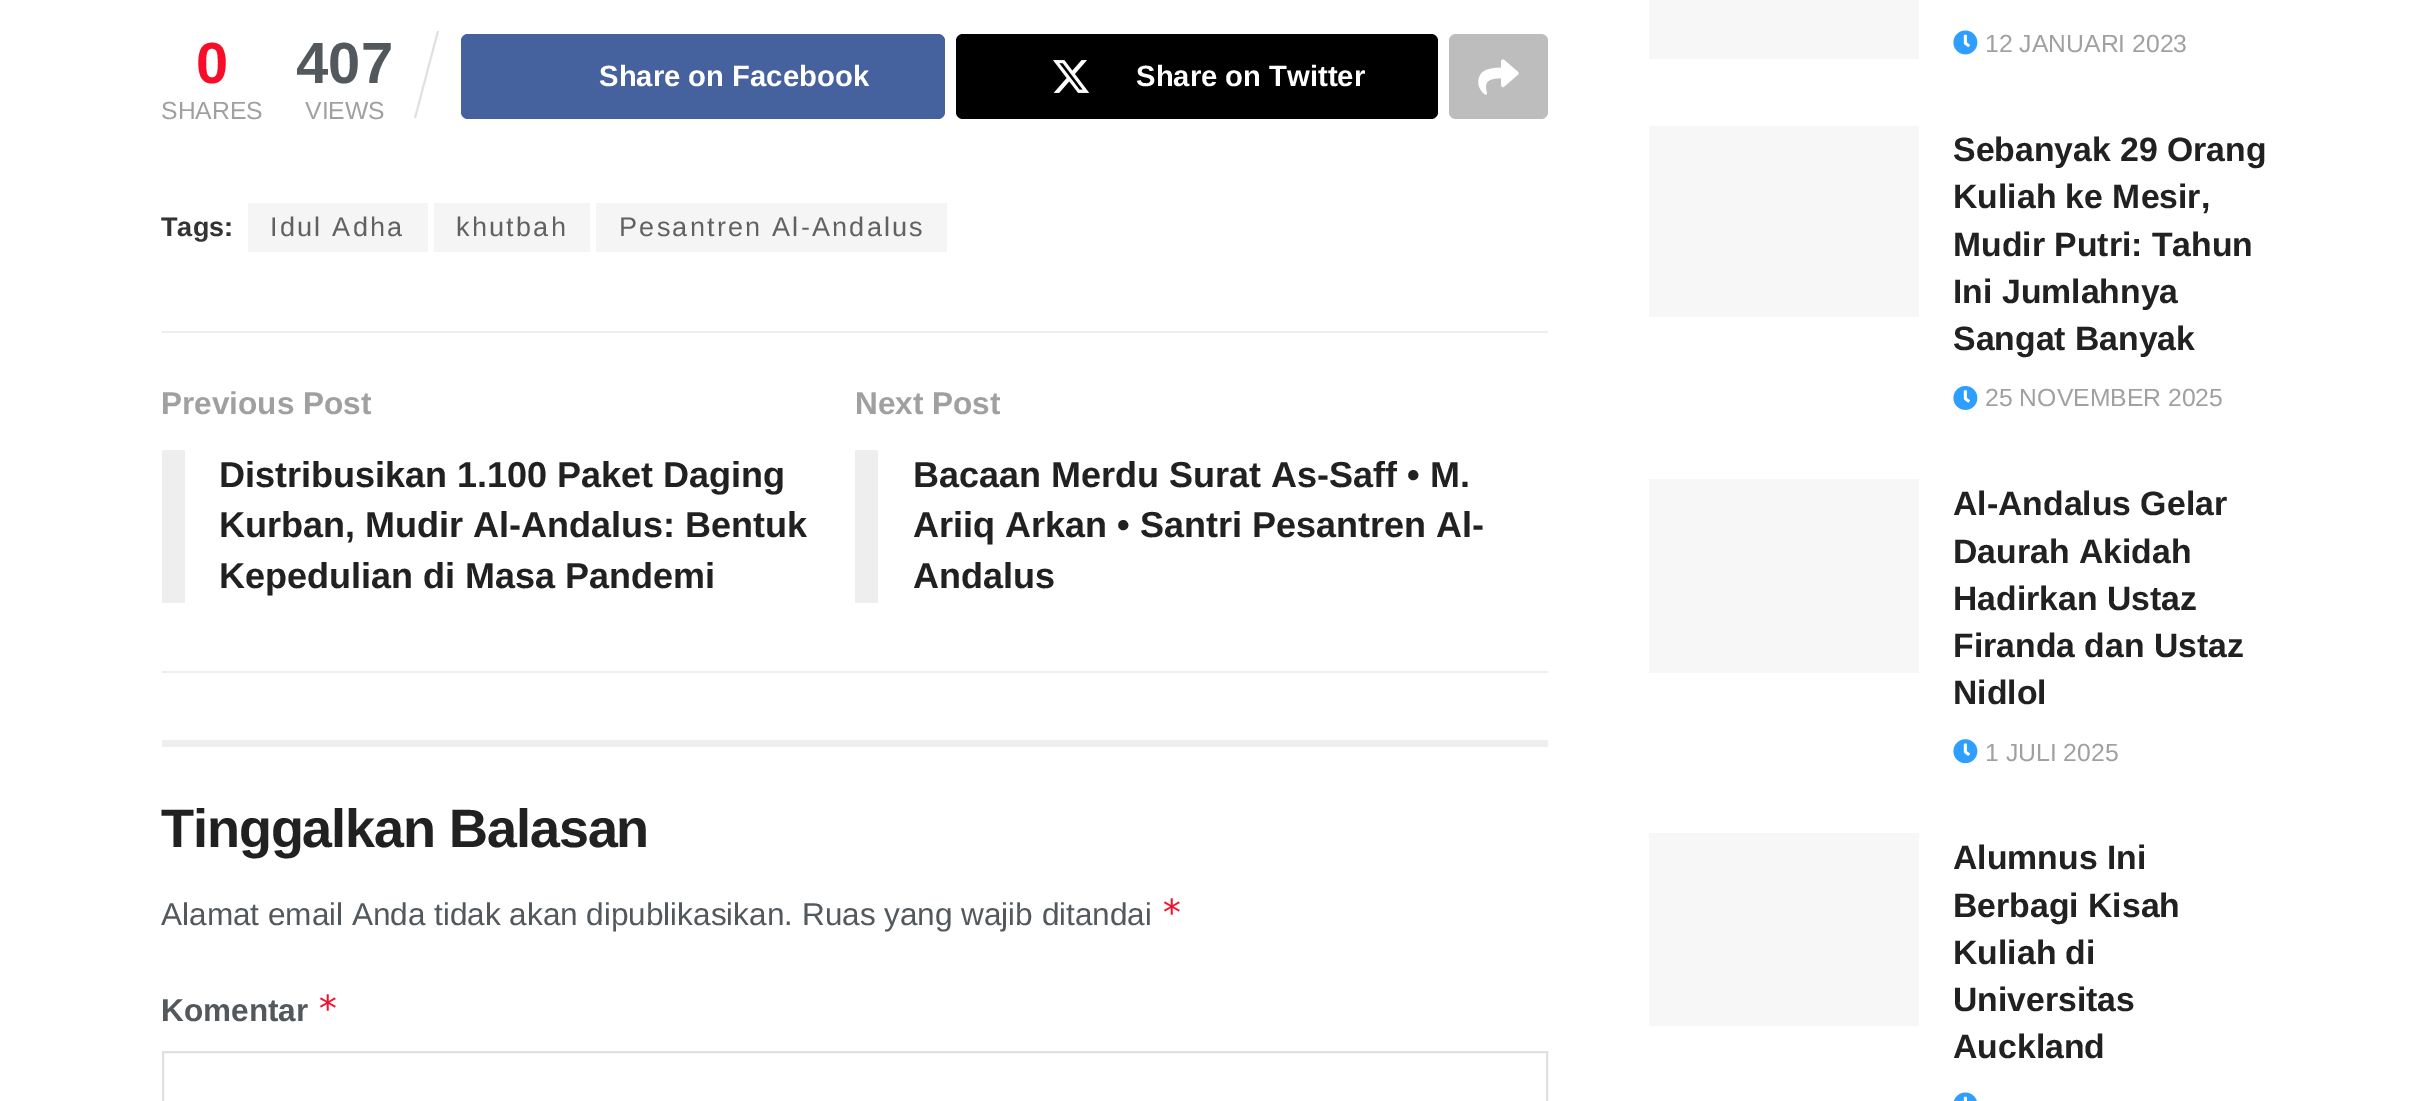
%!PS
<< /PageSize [2436 1101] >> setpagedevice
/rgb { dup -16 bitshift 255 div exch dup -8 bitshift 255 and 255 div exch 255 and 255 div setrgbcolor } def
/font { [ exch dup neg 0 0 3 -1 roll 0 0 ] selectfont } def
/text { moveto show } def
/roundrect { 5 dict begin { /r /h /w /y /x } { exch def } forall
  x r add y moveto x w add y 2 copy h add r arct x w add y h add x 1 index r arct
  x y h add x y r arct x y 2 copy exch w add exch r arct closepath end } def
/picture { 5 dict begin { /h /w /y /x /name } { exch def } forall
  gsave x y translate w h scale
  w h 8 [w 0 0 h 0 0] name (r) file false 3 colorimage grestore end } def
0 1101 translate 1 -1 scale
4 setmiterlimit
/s1 { /LiberationSans-Bold 58 font 16#F70D28 rgb } def
/s2 { /LiberationSans-Regular 24.75 font 16#A0A0A0 rgb } def
/s3 { /LiberationSans-Bold 58 font 16#53585C rgb } def
/s4 { /LiberationSans-Bold 29.25 font 16#FFFFFF rgb } def
/s5 { /LiberationSans-Bold 27 font 16#333333 rgb } def
/s6 { /LiberationSans-Bold 31.5 font 16#A0A0A0 rgb } def
/s7 { /LiberationSans-Bold 36 font 16#212121 rgb } def
/s8 { /LiberationSans-Regular 31.5 font 16#53585C rgb } def
/s9 { /DejaVuSansMono-Regular 36 font 16#F70D28 rgb } def
/s10 { /LiberationSans-Bold 31.5 font 16#53585C rgb } def
/s11 { /LiberationSans-Bold 33.75 font 16#212121 rgb } def
16#FFFFFF rgb
0 0 2436 1101 rectfill
s1
(0) 196 83 text
s2
(SHARES) 161 119 text
s3
(407) 296 83 text
16#E0E0E0 rgb
437 31 moveto 439 31 lineto 416 118 lineto 414 118 lineto closepath fill
s2
(VIEWS) 305 119 text
16#45629F rgb
461 34 484 85 7 roundrect fill
s4
(Share on Facebook) 599 86 text
16#000000 rgb
956 34 482 85 7 roundrect fill
(pic1.raw) 1053 60 37 33 picture
s4
(Share on Twitter) 1136 86 text
16#BDBDBD rgb
1449 34 99 85 7 roundrect fill
(pic2.raw) 1478 59 41 36 picture
s5
(Tags:) 161 236 text
16#F5F5F5 rgb
248 203 180 49 rectfill
/LiberationSans-Regular 27 font
16#616161 rgb
270 236 moveto 2.25 0 (Idul Adha) ashow
16#F5F5F5 rgb
434 203 156 49 rectfill
16#616161 rgb
456 236 moveto 2.25 0 (khutbah) ashow
16#F5F5F5 rgb
596 203 351 49 rectfill
16#616161 rgb
619 236 moveto 2.25 0 (Pesantren Al-Andalus) ashow
16#EEEEEE rgb
162 331 1386 2 rectfill
162 671 1386 2 rectfill
s6
(Previous Post) 161 414 text
16#EEEEEE rgb
162 450 23 153 rectfill
s7
(Distribusikan 1.100 Paket Daging) 219 487 text
(Kurban, Mudir Al-Andalus: Bentuk) 219 537 text
(Kepedulian di Masa Pandemi) 219 588 text
s6
(Next Post) 855 414 text
16#EEEEEE rgb
855 450 23 153 rectfill
s7
(Bacaan Merdu Surat As-Saff • M.) 913 487 text
(Ariiq Arkan • Santri Pesantren Al-) 913 537 text
(Andalus) 913 588 text
16#EEEEEE rgb
162 740 1386 7 rectfill
/LiberationSans-Bold 54 font
16#212121 rgb
161 847 moveto -1.1 0 (Tinggalkan Balasan) ashow
s8
(Alamat email Anda tidak akan dipublikasikan. Ruas yang wajib ditandai) 161 925 text
s9
(*) 1161 925 text
s10
(Komentar) 161 1021 text
s9
(*) 317 1021 text
16#E0E0E0 rgb
2 setlinewidth
163 1052 1384 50 rectstroke
16#F7F7F7 rgb
1649 0 270 59 rectfill
(pic3.raw) 1953 30 25 25 picture
s2
(12 JANUARI 2023) 1985 52 text
16#F7F7F7 rgb
1649 126 270 191 rectfill
s11
(Sebanyak 29 Orang) 1953 161 text
(Kuliah ke Mesir,) 1953 208 text
(Mudir Putri: Tahun) 1953 256 text
(Ini Jumlahnya) 1953 303 text
(Sangat Banyak) 1953 350 text
(pic4.raw) 1953 386 25 24 picture
s2
(25 NOVEMBER 2025) 1985 406 text
16#F7F7F7 rgb
1649 479 270 194 rectfill
s11
(Al-Andalus Gelar) 1953 515 text
(Daurah Akidah) 1953 563 text
(Hadirkan Ustaz) 1953 610 text
(Firanda dan Ustaz) 1953 657 text
(Nidlol) 1953 704 text
(pic5.raw) 1953 739 25 25 picture
s2
(1 JULI 2025) 1985 761 text
16#F7F7F7 rgb
1649 833 270 193 rectfill
s11
(Alumnus Ini) 1953 869 text
(Berbagi Kisah) 1953 917 text
(Kuliah di) 1953 964 text
(Universitas) 1953 1011 text
(Auckland) 1953 1058 text
(pic6.raw) 1954 1092 23 9 picture
showpage
